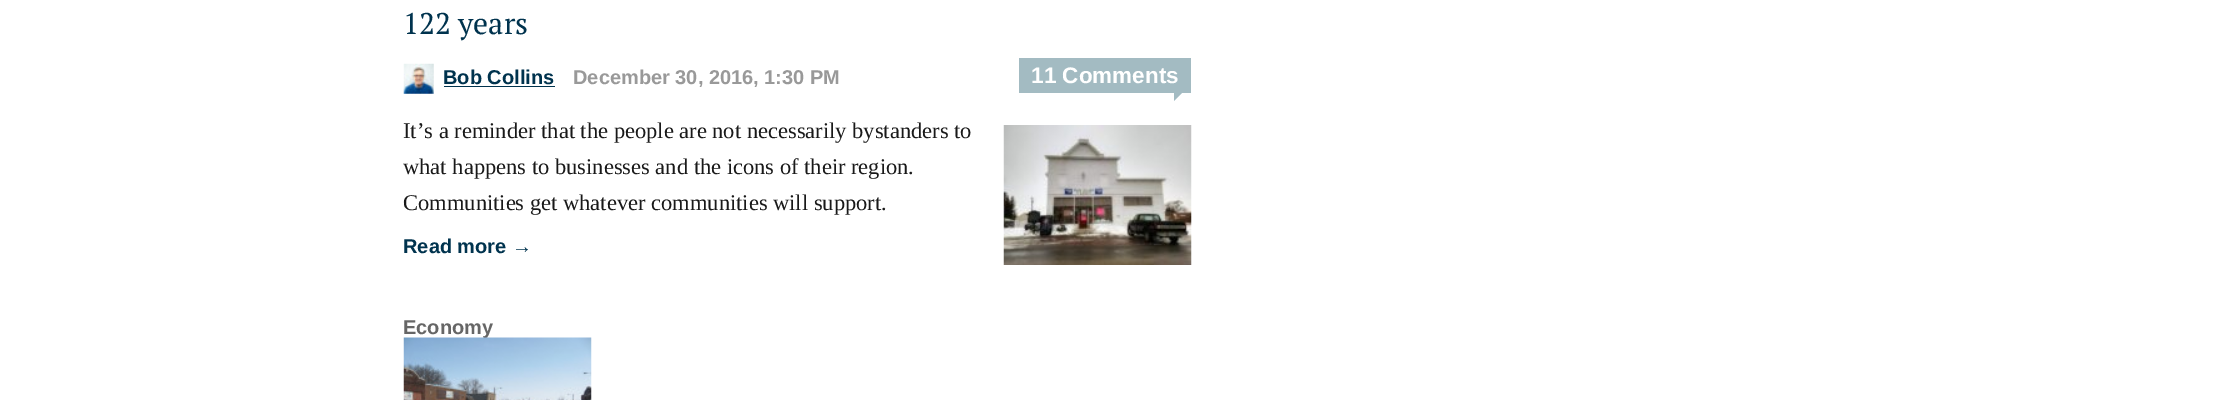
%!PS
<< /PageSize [2214 400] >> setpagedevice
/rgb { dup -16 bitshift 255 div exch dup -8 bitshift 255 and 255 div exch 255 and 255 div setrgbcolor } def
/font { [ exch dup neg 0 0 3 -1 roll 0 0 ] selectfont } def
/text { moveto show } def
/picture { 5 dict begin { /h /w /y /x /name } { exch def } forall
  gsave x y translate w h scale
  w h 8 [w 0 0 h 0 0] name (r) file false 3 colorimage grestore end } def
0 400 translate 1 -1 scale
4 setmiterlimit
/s1 { /PTSerif-Regular 30 font 16#00334E rgb } def
/s2 { /LiberationSans-Bold 20 font 16#00334E rgb } def
/s3 { /LiberationSans-Bold 20 font 16#999999 rgb } def
/s4 { /LiberationSans-Bold 22.5 font 16#FFFFFF rgb } def
/s5 { /LiberationSerif-Regular 22.5 font 16#191919 rgb } def
/s6 { /LiberationSans-Regular 20 font 16#00334E rgb } def
/s7 { /LiberationSans-Bold 20 font 16#666666 rgb } def
16#FFFFFF rgb
0 0 2214 400 rectfill
s1
(122 years) 403 34 text
(pic1.raw) 403 63 31 31 picture
s2
(Bob Collins) 443 84 text
444 86 111 1 rectfill
s3
(December 30, 2016, 1:30 PM) 573 84 text
16#A3BBC2 rgb
1019 58 172 35 rectfill
s4
(11 Comments) 1031 83 text
16#A3BBC2 rgb
1174 101 moveto 1174 84 lineto 1191 84 lineto closepath fill
s5
(It’s a reminder that the people are not necessarily bystanders to) 403 138 text
(what happens to businesses and the icons of their region.) 403 174 text
(Communities get whatever communities will support.) 403 210 text
s2
(Read more) 403 253 text
s6
(→) 512 253 text
(pic2.raw) 1003 125 189 140 picture
s7
(Economy) 403 334 text
(pic3.raw) 403 337 189 63 picture
showpage
